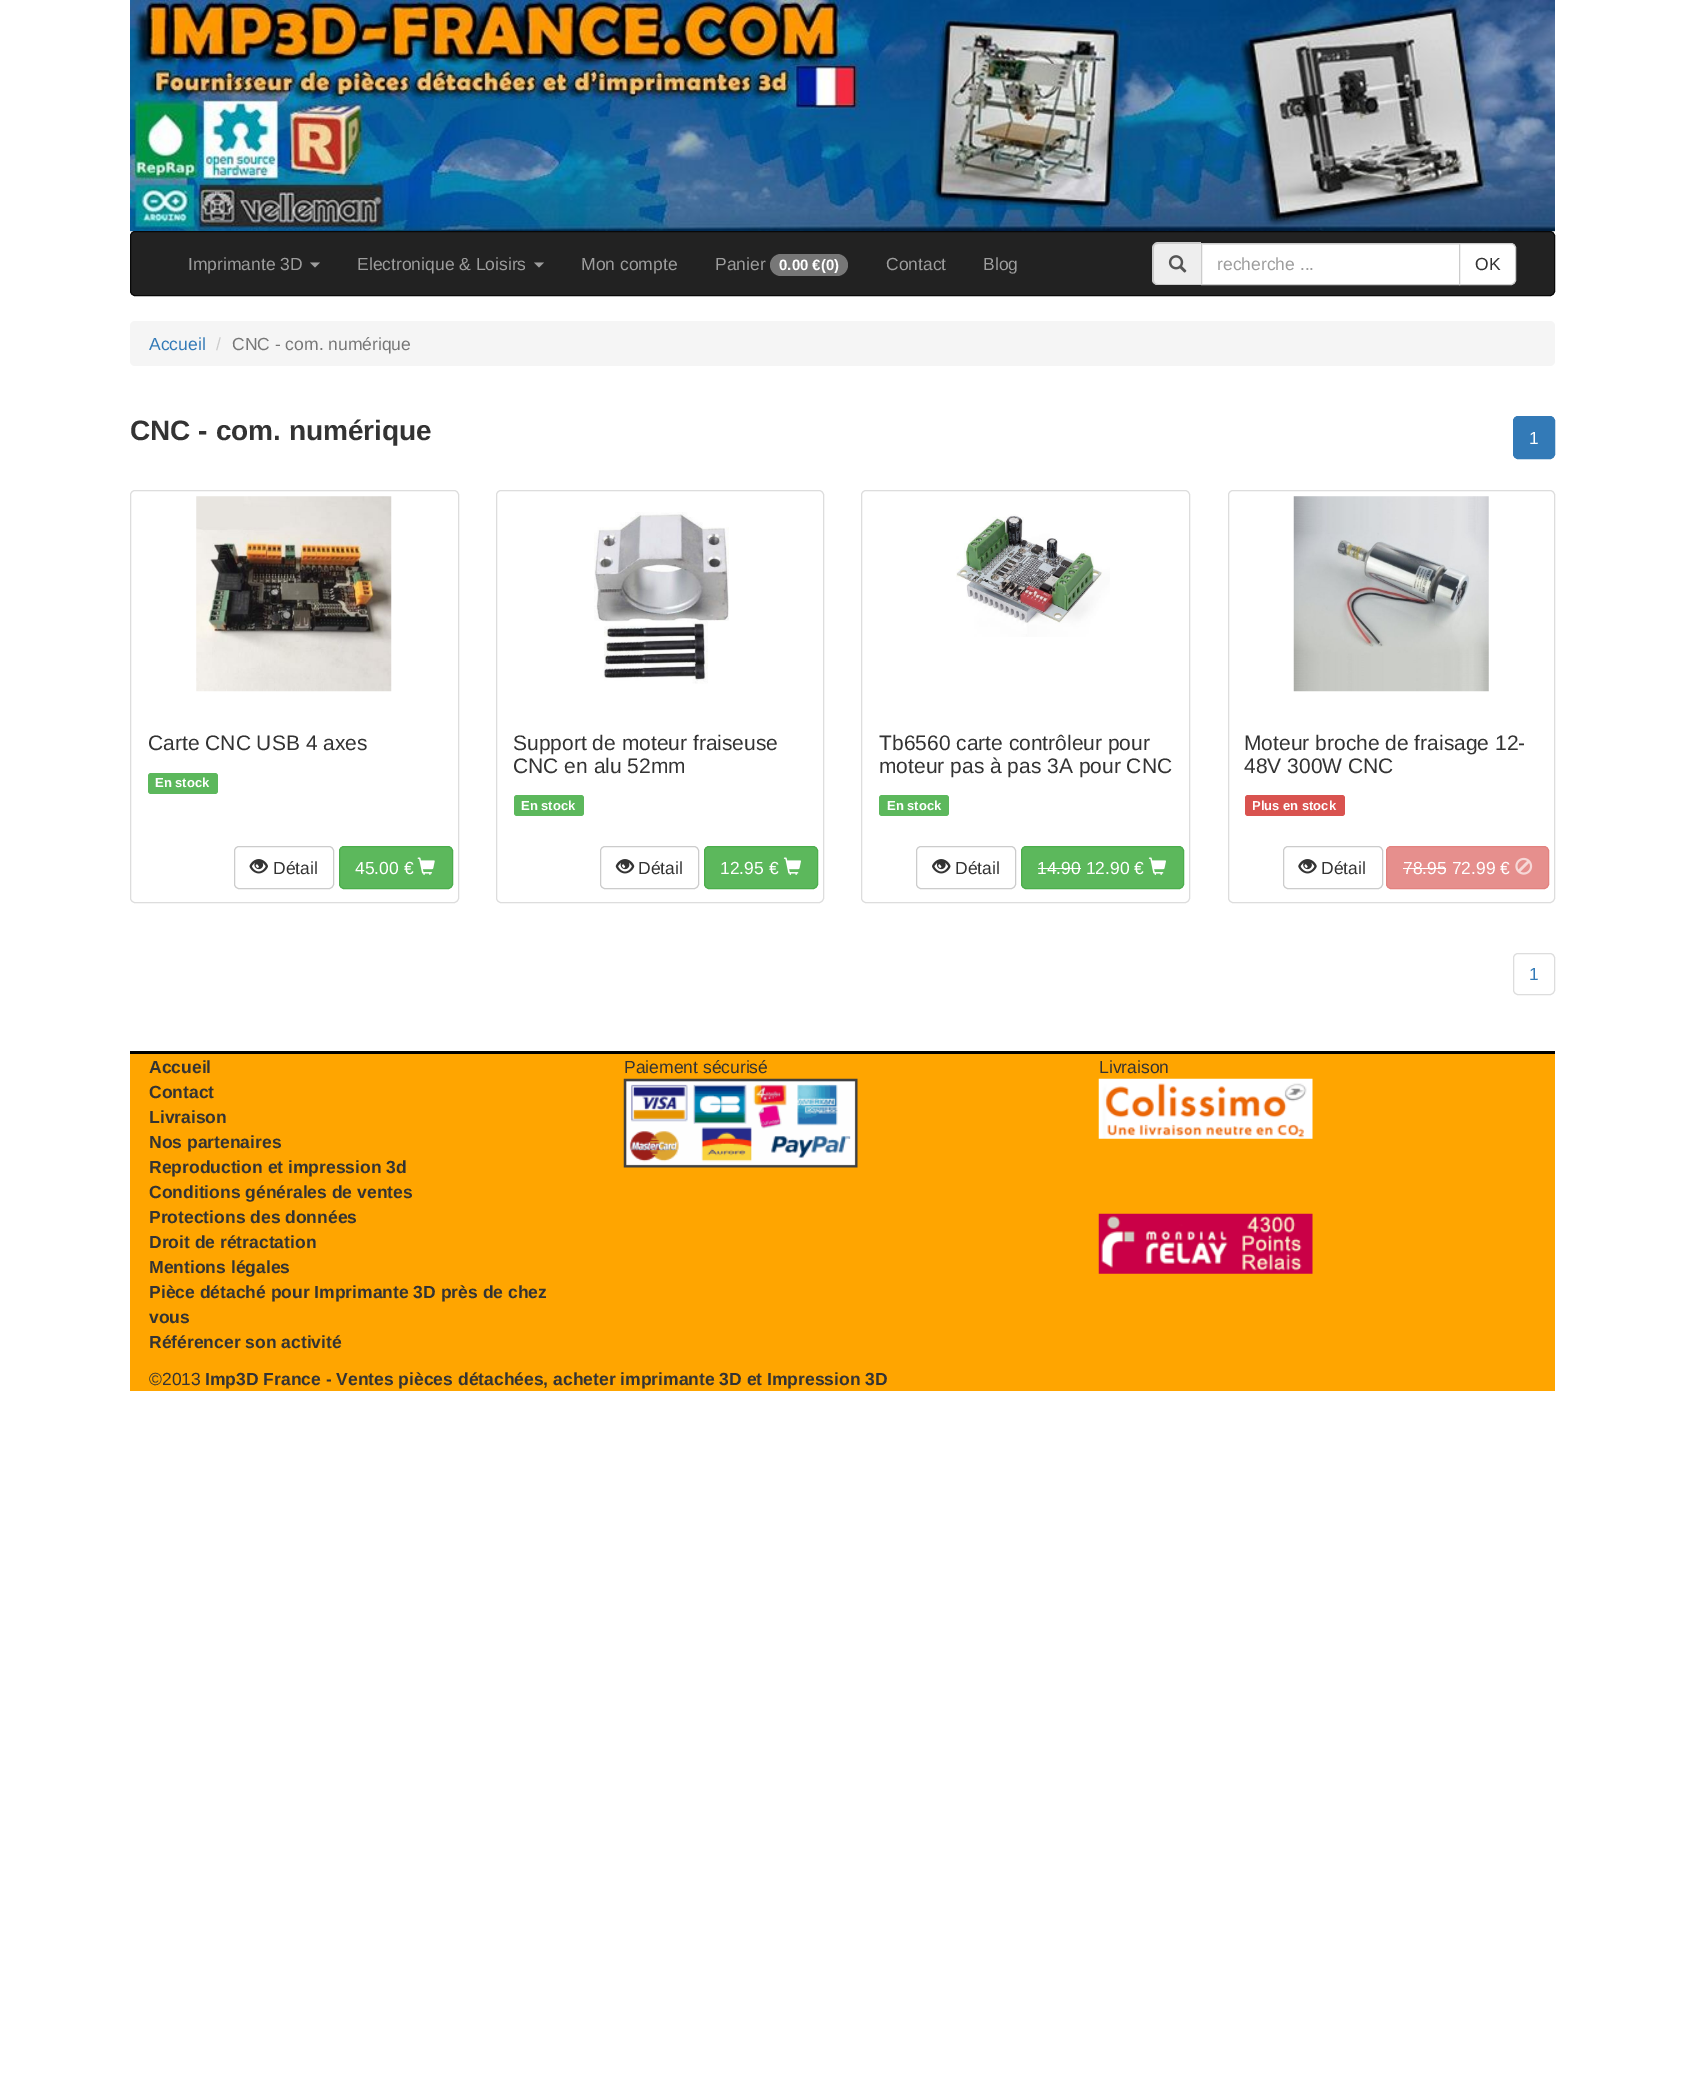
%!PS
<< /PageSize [1684 2098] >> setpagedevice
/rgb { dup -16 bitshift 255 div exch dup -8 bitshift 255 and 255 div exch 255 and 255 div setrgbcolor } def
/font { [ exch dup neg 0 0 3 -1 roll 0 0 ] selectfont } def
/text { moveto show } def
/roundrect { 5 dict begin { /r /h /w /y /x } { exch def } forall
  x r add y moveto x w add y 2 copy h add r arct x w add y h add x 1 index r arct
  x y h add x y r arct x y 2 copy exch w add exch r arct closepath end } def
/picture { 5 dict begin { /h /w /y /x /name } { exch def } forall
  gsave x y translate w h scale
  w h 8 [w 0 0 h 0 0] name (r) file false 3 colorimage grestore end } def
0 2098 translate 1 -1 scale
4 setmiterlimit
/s1 { /LiberationSans-Regular 17.5 font 16#9D9D9D rgb } def
/s2 { /LiberationSans-Bold 15 font 16#FFFFFF rgb } def
/s3 { /LiberationSans-Regular 17.5 font 16#333333 rgb } def
/s4 { /LiberationSans-Regular 17.5 font 16#337AB7 rgb } def
/s5 { /LiberationSans-Regular 17.5 font 16#CCCCCC rgb } def
/s6 { /LiberationSans-Regular 17.5 font 16#777777 rgb } def
/s7 { /LiberationSans-Bold 28 font 16#333333 rgb } def
/s8 { /LiberationSans-Regular 17.5 font 16#FFFFFF rgb } def
/s9 { /LiberationSans-Regular 21 font 16#333333 rgb } def
/s10 { /LiberationSans-Bold 13 font 16#FFFFFF rgb } def
/s11 { /LiberationSans-Bold 17.5 font 16#333333 rgb } def
16#FFFFFF rgb
0 0 1684 2098 rectfill
(pic1.raw) 130 0 1425 232 picture
16#222222 rgb
130.5 231.5 1424 64 4.5 roundrect gsave fill grestore
16#080808 rgb
stroke
s1
(Imprimante 3D) 188 270 text
310 262.5 moveto 320 262.5 lineto 315 267.5 lineto closepath fill
(Electronique & Loisirs) 357 270 text
534 262.5 moveto 544 262.5 lineto 539 267.5 lineto closepath fill
(Mon compte) 581 270 text
(Panier) 715 270 text
16#777777 rgb
770 254 78 22 11 roundrect fill
s2
(0.00 €\(0\)) 779 270 text
s1
(Contact) 886 270 text
(Blog) 983 270 text
16#EEEEEE rgb
1158 243 moveto 1201 243 lineto 1201 285 lineto 1158 285 lineto 1155 285 1153 283 1153 280 curveto 1153 248 lineto 1153 245 1155 243 1158 243 curveto closepath fill
16#CCCCCC rgb
1158 242 moveto 1201 242 lineto 1201 285 lineto 1158 285 lineto 1155 285 1152 283 1152 280 curveto 1152 248 lineto 1152 245 1155 242 1158 242 curveto closepath 1158 244 moveto 1201 244 lineto 1201 284 lineto 1158 284 lineto 1155 284 1154 282 1154 280 curveto 1154 248 lineto 1154 245 1155 244 1158 244 curveto closepath eofill
(pic2.raw) 1168 255 19 18 picture
16#FFFFFF rgb
1202 244 257 40 rectfill
16#ECECEC rgb
1203 244 256 1 rectfill
16#CCCCCC rgb
1201.5 243.5 258 41 rectstroke
s1
(recherche ...) 1217 270 text
16#FFFFFF rgb
1459.5 243.5 moveto 1511 243.5 lineto 1513.5 243.5 1515.5 245.5 1515.5 248 curveto 1515.5 280 lineto 1515.5 282.5 1513.5 284.5 1511 284.5 curveto 1459.5 284.5 lineto closepath gsave fill grestore
16#CCCCCC rgb
stroke
s3
(OK) 1475 270 text
16#F5F5F5 rgb
130 321 1425 45 5 roundrect fill
s4
(Accueil) 149 350 text
s5
(/) 216 350 text
s6
(CNC - com. numérique) 232 350 text
s7
(CNC - com. numérique) 130 440 text
16#337AB7 rgb
1513.5 416.5 41 42 4.5 roundrect gsave fill grestore
stroke
s8
(1) 1529 444 text
16#DDDDDD rgb
130.5 490.5 328 412 4.5 roundrect stroke
(pic3.raw) 196 496 196 196 picture
s9
(Carte CNC USB 4 axes) 148 750 text
16#5CB85C rgb
148 773 70 21 3 roundrect fill
s10
(En stock) 155 787 text
16#CCCCCC rgb
234.5 846.5 99 42 4.5 roundrect stroke
(pic4.raw) 249 859 19 15 picture
s3
(Détail) 273 874 text
16#5CB85C rgb
339.5 846.5 113 42 4.5 roundrect gsave fill grestore
16#4CAE4C rgb
stroke
s8
(45.00 €) 355 874 text
(pic5.raw) 417 857 18 18 picture
16#DDDDDD rgb
496.5 490.5 327 412 4.5 roundrect stroke
(pic6.raw) 594 512 135 172 picture
s9
(Support de moteur fraiseuse) 513 750 text
(CNC en alu 52mm) 513 773 text
16#5CB85C rgb
514 795 70 21 3 roundrect fill
s10
(En stock) 521 810 text
16#CCCCCC rgb
600.5 846.5 98 42 4.5 roundrect stroke
(pic7.raw) 615 859 20 15 picture
s3
(Détail) 638 874 text
16#5CB85C rgb
704.5 846.5 113 42 4.5 roundrect gsave fill grestore
16#4CAE4C rgb
stroke
s8
(12.95 €) 720 874 text
(pic8.raw) 783 857 18 18 picture
16#DDDDDD rgb
861.5 490.5 328 412 4.5 roundrect stroke
(pic9.raw) 956 514 154 123 picture
s9
(Tb6560 carte contrôleur pour) 879 750 text
(moteur pas à pas 3A pour CNC) 879 773 text
16#5CB85C rgb
879 795 70 21 3 roundrect fill
s10
(En stock) 887 810 text
16#CCCCCC rgb
916.5 846.5 99 42 4.5 roundrect stroke
(pic10.raw) 932 859 19 15 picture
s3
(Détail) 955 874 text
16#5CB85C rgb
1021.5 846.5 162 42 4.5 roundrect gsave fill grestore
16#4CAE4C rgb
stroke
s8
(14.90 12.90 €) 1037 874 text
1038 868 43 1 rectfill
(pic8.raw) 1148 857 18 18 picture
16#DDDDDD rgb
1228.5 490.5 326 412 4.5 roundrect stroke
(pic11.raw) 1293 496 196 196 picture
s9
(Moteur broche de fraisage 12-) 1244 750 text
(48V 300W CNC) 1244 773 text
16#D9534F rgb
1245 795 100 21 3 roundrect fill
s10
(Plus en stock) 1252 810 text
16#CCCCCC rgb
1283.5 846.5 99 42 4.5 roundrect stroke
(pic12.raw) 1298 859 19 15 picture
s3
(Détail) 1321 874 text
16#E68F8D rgb
1386.5 846.5 162 42 4.5 roundrect gsave fill grestore
16#E3827F rgb
stroke
s8
(78.95 72.99 €) 1403 874 text
1403 868 43 1 rectfill
(pic13.raw) 1515 857 18 18 picture
16#DDDDDD rgb
1513.5 953.5 41 41 4.5 roundrect stroke
s4
(1) 1529 980 text
16#FFA500 rgb
130 1054 1425 337 rectfill
16#000000 rgb
130 1051 1425 3 rectfill
s11
(Accueil) 149 1073 text
(Contact) 149 1098 text
(Livraison) 149 1123 text
(Nos partenaires) 149 1148 text
(Reproduction et impression 3d) 149 1173 text
(Conditions générales de ventes) 149 1198 text
(Protections des données) 149 1223 text
(Droit de rétractation) 149 1248 text
(Mentions légales) 149 1273 text
(Pièce détaché pour Imprimante 3D près de chez) 149 1298 text
(vous) 149 1323 text
(Référencer son activité) 149 1348 text
s3
(Paiement sécurisé) 624 1073 text
(pic14.raw) 623 1078 235 90 picture
(Livraison) 1099 1073 text
(pic15.raw) 1098 1078 215 61 picture
(pic16.raw) 1098 1213 215 61 picture
(©2013) 149 1385 text
s11
(Imp3D France - Ventes pièces détachées, acheter imprimante 3D et Impression 3D) 205 1385 text
showpage
